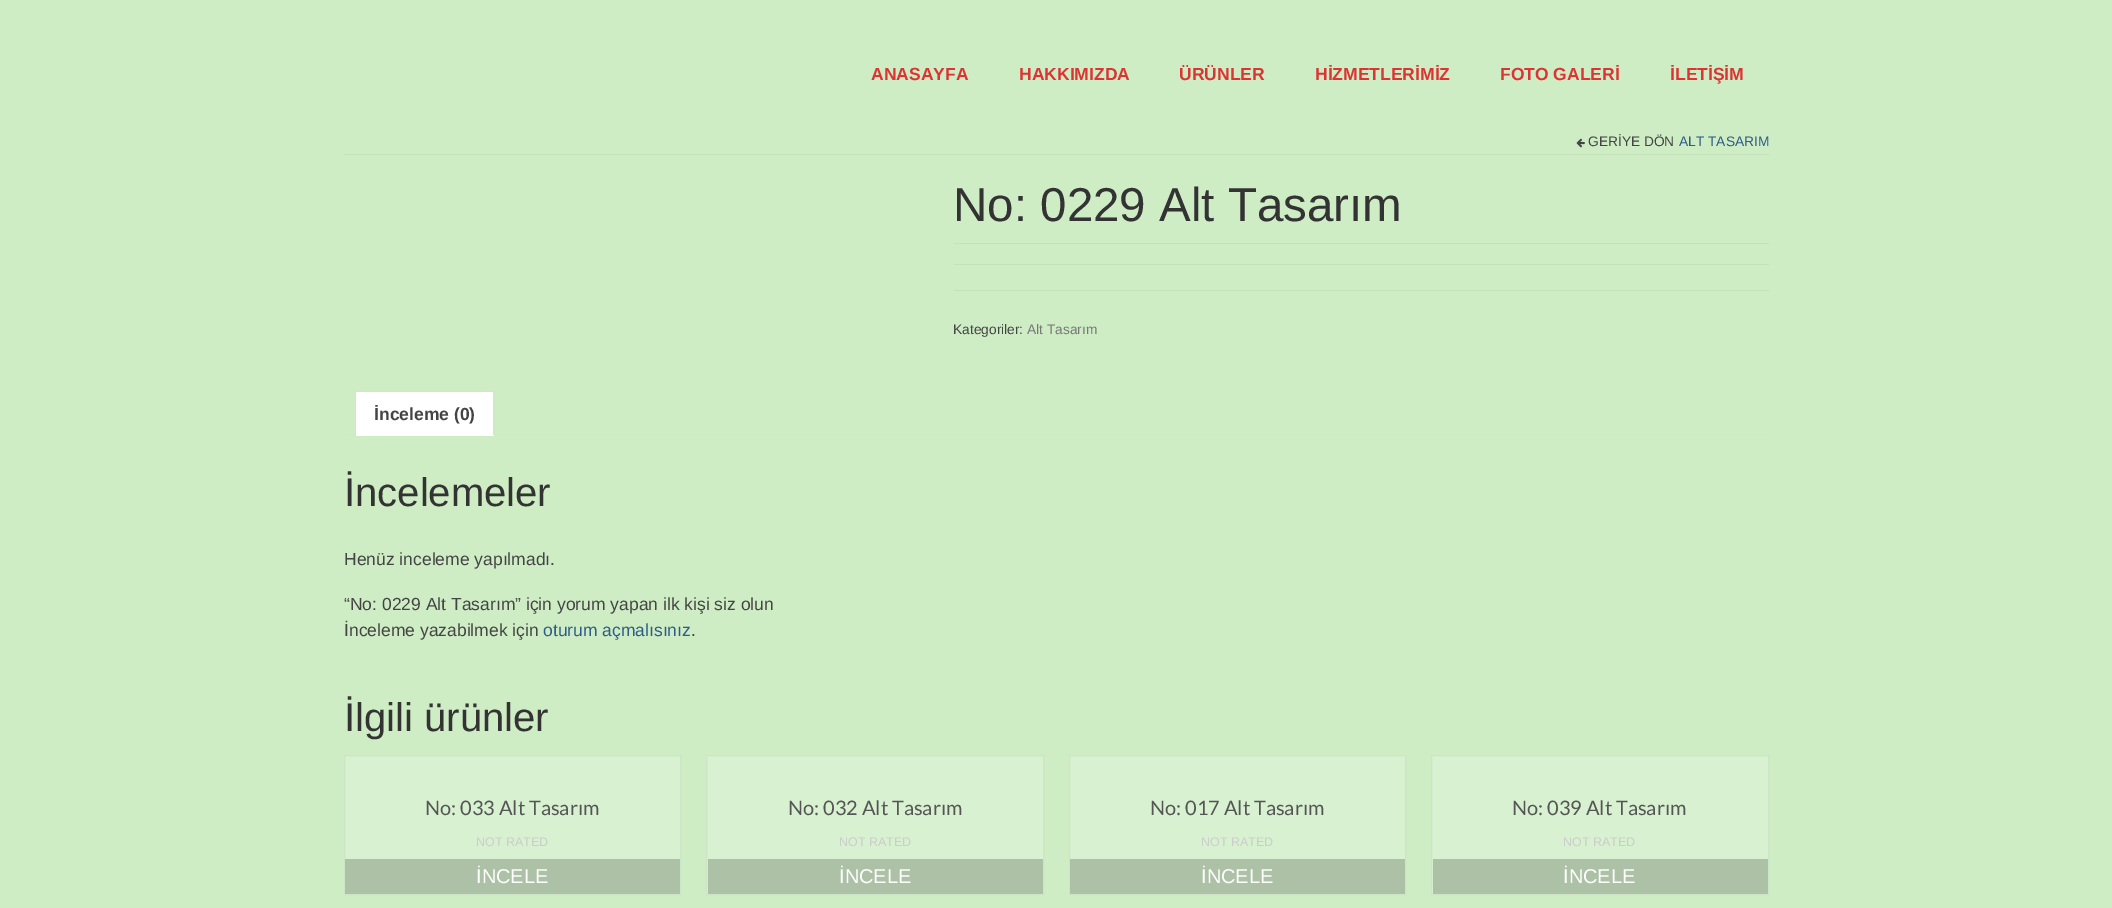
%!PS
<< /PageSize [2112 908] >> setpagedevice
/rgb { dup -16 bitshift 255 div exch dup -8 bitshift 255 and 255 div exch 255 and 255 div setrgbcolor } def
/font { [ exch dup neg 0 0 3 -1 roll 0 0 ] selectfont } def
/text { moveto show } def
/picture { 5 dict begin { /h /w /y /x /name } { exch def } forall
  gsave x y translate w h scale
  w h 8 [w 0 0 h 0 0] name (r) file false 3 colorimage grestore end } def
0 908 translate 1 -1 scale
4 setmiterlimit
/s1 { /LiberationSans-Bold 17.5 font 16#DD3333 rgb } def
/s2 { /LiberationSans-Regular 13.75 font 16#444444 rgb } def
/s3 { /LiberationSans-Regular 13.75 font 16#2D5C88 rgb } def
/s4 { /LiberationSans-Regular 47.5 font 16#333333 rgb } def
/s5 { /LiberationSans-Regular 13.75 font 16#777777 rgb } def
/s6 { /LiberationSans-Bold 17.5 font 16#444444 rgb } def
/s7 { /LiberationSans-Regular 40 font 16#333333 rgb } def
/s8 { /LiberationSans-Regular 17.5 font 16#444444 rgb } def
/s9 { /LiberationSans-Regular 17.5 font 16#2D5C88 rgb } def
/s10 { /Lato-Regular 20 font 16#555555 rgb } def
/s11 { /LiberationSans-Regular 12.5 font 16#CCCCCC rgb } def
/s12 { /LiberationSans-Regular 20 font 16#FFFFFF rgb } def
16#CEEDC4 rgb
0 0 2112 908 rectfill
s1
(ANASAYFA) 871 80 text
(HAKKIMIZDA) 1019 80 text
(ÜRÜNLER) 1179 80 text
(HİZMETLERİMİZ) 1315 80 text
(FOTO GALERİ) 1500 80 text
(İLETİŞİM) 1670 80 text
16#C4E1BA rgb
344 154 1425 1 rectfill
(pic1.raw) 1576 138 9 10 picture
s2
(GERİYE DÖN) 1588 146 text
s3
(ALT TASARIM) 1679 146 text
s4
(No: 0229 Alt Tasarım) 953 221 text
16#C4E1BA rgb
954 243 815 1 rectfill
954 264 815 1 rectfill
954 290 815 1 rectfill
s2
(Kategoriler:) 953 334 text
s5
(Alt Tasarım) 1027 334 text
16#FFFFFF rgb
356 392 137 43 rectfill
16#DDDDDD rgb
355 391 139 1 rectfill
16#DFDBDF rgb
344 435 1425 1 rectfill
16#DDDDDD rgb
493 391 1 45 rectfill
16#FFFFFF rgb
355 435 139 1 rectfill
16#DDDDDD rgb
355 391 1 45 rectfill
s6
(İnceleme \(0\)) 374 420 text
s7
(İncelemeler) 344 506 text
s8
(Henüz inceleme yapılmadı.) 344 565 text
(“No: 0229 Alt Tasarım” için yorum yapan ilk kişi siz olun) 344 610 text
(İnceleme yazabilmek için) 344 636 text
s9
(oturum açmalısınız) 543 636 text
s8
(.) 691 636 text
s7
(İlgili ürünler) 344 731 text
16#D8F1D0 rgb
345 756 335 103 rectfill
16#CDE5C6 rgb
344.5 755.5 336 139 rectstroke
s10
(No: 033 Alt Tasarım) 425 815 text
s11
(NOT RATED) 476 846 text
16#ADC1A6 rgb
345 859 335 35 rectfill
s12
(İNCELE) 476 883 text
16#D8F1D0 rgb
706.5 755.5 moveto 1043.5 755.5 lineto 1043.5 894.5 lineto 706.5 894.5 lineto closepath gsave fill grestore
16#CDE5C6 rgb
stroke
s10
(No: 032 Alt Tasarım) 788 815 text
s11
(NOT RATED) 839 846 text
16#ADC1A6 rgb
708 859 335 35 rectfill
s12
(İNCELE) 839 883 text
16#D8F1D0 rgb
1070 756 335 103 rectfill
16#CDE5C6 rgb
1069.5 755.5 336 139 rectstroke
s10
(No: 017 Alt Tasarım) 1150 815 text
s11
(NOT RATED) 1201 846 text
16#ADC1A6 rgb
1070 859 335 35 rectfill
s12
(İNCELE) 1201 883 text
16#D8F1D0 rgb
1431.5 755.5 moveto 1768.5 755.5 lineto 1768.5 894.5 lineto 1431.5 894.5 lineto closepath gsave fill grestore
16#CDE5C6 rgb
stroke
s10
(No: 039 Alt Tasarım) 1512 815 text
s11
(NOT RATED) 1563 846 text
16#ADC1A6 rgb
1433 859 335 35 rectfill
s12
(İNCELE) 1563 883 text
showpage
